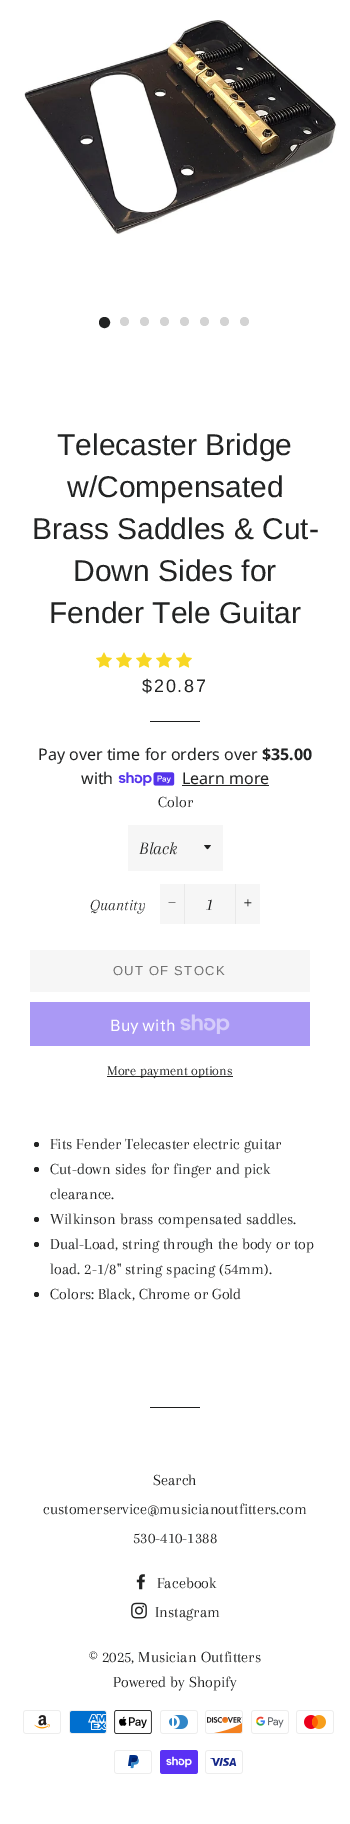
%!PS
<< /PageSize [350 1824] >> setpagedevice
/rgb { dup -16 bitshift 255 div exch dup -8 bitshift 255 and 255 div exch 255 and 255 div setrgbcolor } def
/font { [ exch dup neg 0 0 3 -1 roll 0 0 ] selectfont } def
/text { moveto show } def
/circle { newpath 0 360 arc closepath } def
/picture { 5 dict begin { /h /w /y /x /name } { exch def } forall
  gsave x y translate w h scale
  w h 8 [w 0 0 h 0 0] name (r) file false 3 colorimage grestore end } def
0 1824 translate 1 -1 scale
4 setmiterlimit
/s1 { /LiberationSans-Regular 30 font 16#222323 rgb } def
/s2 { /NotoSans-Regular 16 font 16#222323 rgb } def
/s3 { /NotoSans-Bold 16 font 16#222323 rgb } def
/s4 { /Arapey-Regular 16 font 16#222323 rgb } def
/s5 { /Arapey-Italic 18 font 16#1C1D1D rgb } def
/s6 { /Arapey-Italic 16 font 16#222323 rgb } def
/s7 { /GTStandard-Regular 16 font 16#FFFFFF rgb } def
/s8 { /Arapey-Regular 14 font 16#222323 rgb } def
16#FFFFFF rgb
0 0 350 1824 rectfill
(pic1.raw) 24 20 313 215 picture
16#222323 rgb
104.5 322.5 4.5 circle gsave fill grestore
2 setlinewidth
stroke
16#D3D3D3 rgb
124.5 321.5 4.5 circle fill
144.5 321.5 4.5 circle fill
164.5 321.5 4.5 circle fill
184.5 321.5 4.5 circle fill
204.5 321.5 4.5 circle fill
224.5 321.5 4.5 circle fill
244.5 321.5 4.5 circle fill
s1
(Telecaster Bridge) 57 455 text
(w/Compensated) 67 497 text
(Brass Saddles & Cut-) 32 539 text
(Down Sides for) 73 581 text
(Fender Tele Guitar) 49 623 text
(pic2.raw) 96 652 16 16 picture
(pic2.raw) 116 652 16 16 picture
(pic2.raw) 136 652 16 16 picture
(pic2.raw) 156 652 16 16 picture
(pic2.raw) 176 652 16 16 picture
/LiberationSans-Regular 18 font
142 692 moveto 1.75 0 ($20.87) ashow
16#1C1D1D rgb
150 721 50 1 rectfill
s2
(Pay over time for orders over) 38 760 text
s3
($35.00) 262 760 text
s2
(with) 81 784 text
(pic3.raw) 118 772 57 14 picture
(Learn more) 182 784 text
182 785 87 1 rectfill
s4
(Color) 158 807 text
16#F6F6F6 rgb
128 825 95 46 rectfill
16#222323 rgb
204 845 moveto 208.5 850.5 206.5 850.5 211 845 curveto closepath fill
s5
(Black) 139 854 text
s6
(Quantity) 90 910 text
16#F6F6F6 rgb
160 884 100 40 rectfill
16#E9E9E9 rgb
184 884 1 40 rectfill
16#1C1D1D rgb
168.5 902.5 moveto 175.5 902.5 lineto 175.5 903 lineto 168.5 903 lineto closepath fill
s5
(1) 207 910 text
16#E9E9E9 rgb
235 884 1 40 rectfill
(pic4.raw) 244 899 8 8 picture
16#F6F6F6 rgb
30 950 280 42 rectfill
/LiberationSans-Regular 13 font
16#717171 rgb
113 975 moveto 1.25 0 (OUT OF STOCK) ashow
16#AA99F5 rgb
30 1002 280 44 rectfill
s7
(Buy with) 110 1031 text
(pic5.raw) 180 1014 50 20 picture
16#222323 rgb
107 1076 126 1 rectfill
s8
(More payment options) 107 1075 text
36.5 1144.5 2.5 circle fill
s4
(Fits Fender Telecaster electric guitar) 50 1149 text
36.5 1169.5 2.5 circle fill
(Cut-down sides for finger and pick) 50 1174 text
(clearance.) 50 1199 text
36.5 1219.5 2.5 circle fill
(Wilkinson brass compensated saddles.) 50 1224 text
36.5 1244.5 2.5 circle fill
(Dual-Load, string through the body or top) 50 1249 text
(load. 2-1/8" string spacing \(54mm\).) 50 1274 text
36.5 1294.5 2.5 circle fill
(Colors: Black, Chrome or Gold) 50 1299 text
16#1C1D1D rgb
150 1407 50 1 rectfill
s4
(Search) 153 1485 text
(customerservice@musicianoutfitters.com) 43 1514 text
(530-410-1388) 133 1543 text
(pic6.raw) 136 1574 9 16 picture
(Facebook) 157 1588 text
(pic7.raw) 131 1602 16 17 picture
(Instagram) 155 1617 text
(© 2025, Musician Outfitters) 89 1662 text
(Powered by Shopify) 113 1687 text
(pic8.raw) 23 1710 38 24 picture
(pic9.raw) 69 1710 38 24 picture
(pic10.raw) 114 1710 38 24 picture
(pic11.raw) 160 1710 38 24 picture
(pic12.raw) 205 1710 38 24 picture
(pic13.raw) 251 1710 38 24 picture
(pic14.raw) 296 1710 38 24 picture
(pic15.raw) 114 1750 38 24 picture
(pic16.raw) 160 1750 38 24 picture
(pic17.raw) 205 1750 38 24 picture
showpage
